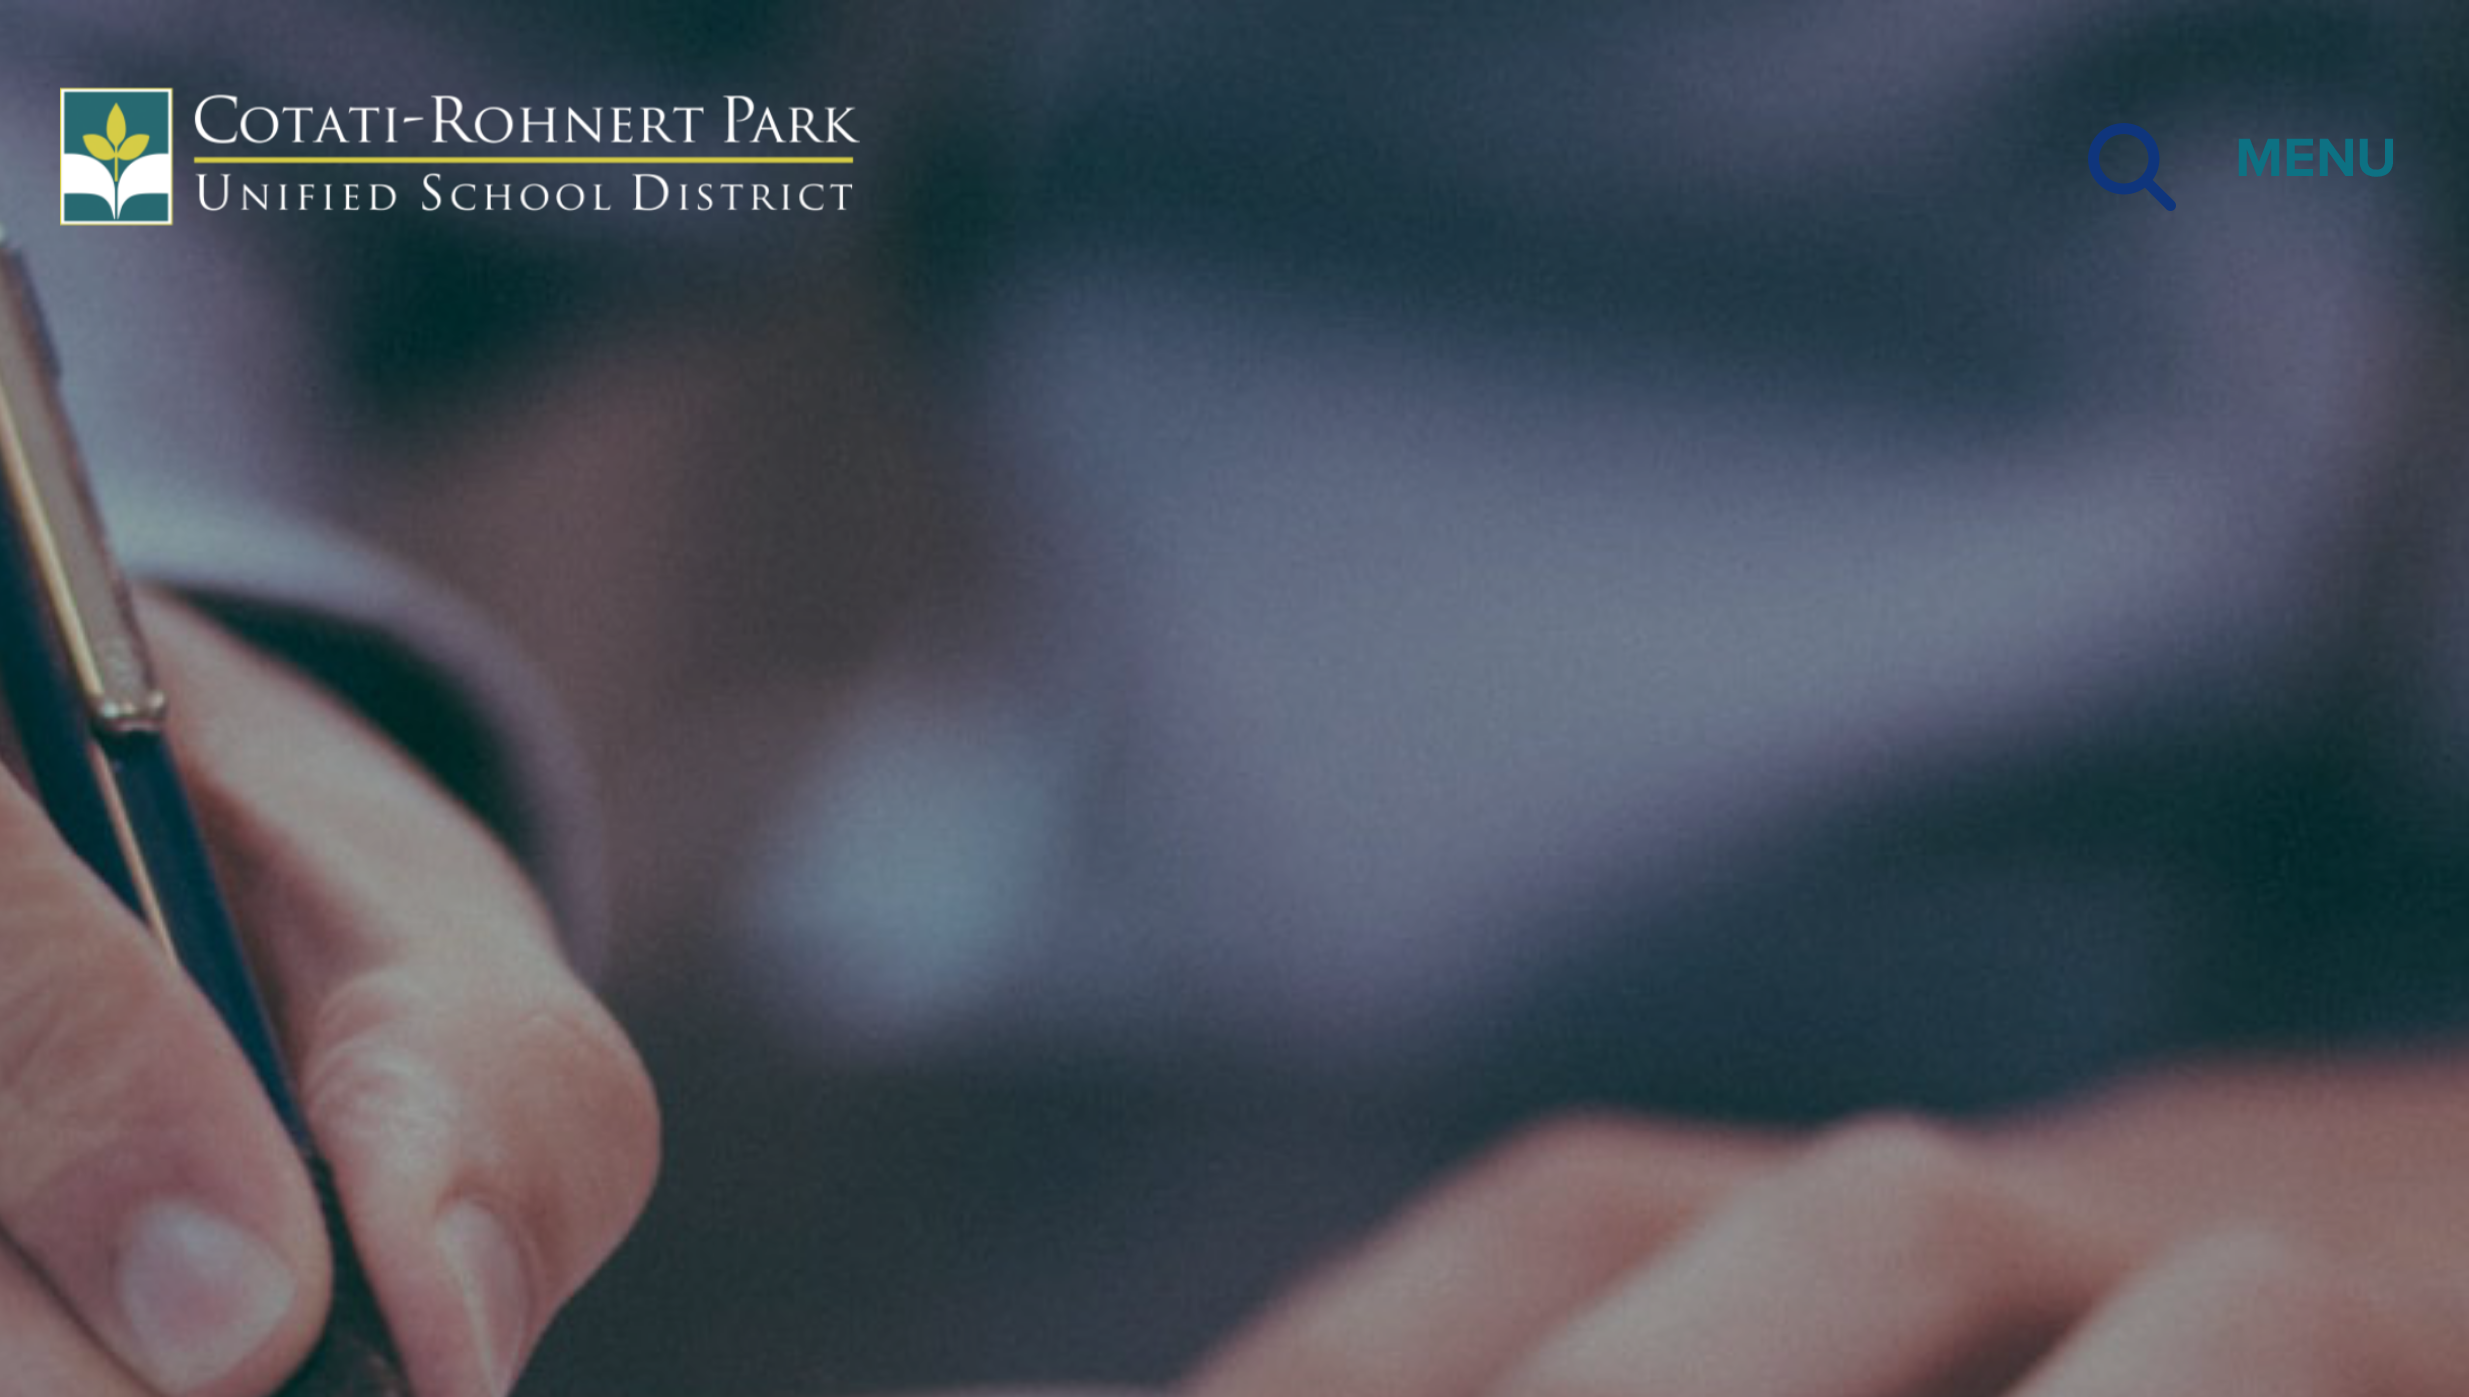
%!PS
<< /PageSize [2469 1397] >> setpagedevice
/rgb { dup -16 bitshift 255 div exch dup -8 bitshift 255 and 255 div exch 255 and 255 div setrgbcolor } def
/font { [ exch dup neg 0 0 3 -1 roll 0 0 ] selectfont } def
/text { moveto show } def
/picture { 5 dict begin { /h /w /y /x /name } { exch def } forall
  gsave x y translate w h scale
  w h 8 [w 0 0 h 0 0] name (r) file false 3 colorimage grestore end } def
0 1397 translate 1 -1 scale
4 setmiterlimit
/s1 { /ProximaNova-Bold 56 font 16#0D7183 rgb } def
16#FFFFFF rgb
0 0 2469 1397 rectfill
(pic1.raw) 0 0 2469 1397 picture
(pic2.raw) 60 87 800 139 picture
(pic3.raw) 2088 123 88 88 picture
s1
(MENU) 2235 176 text
showpage
